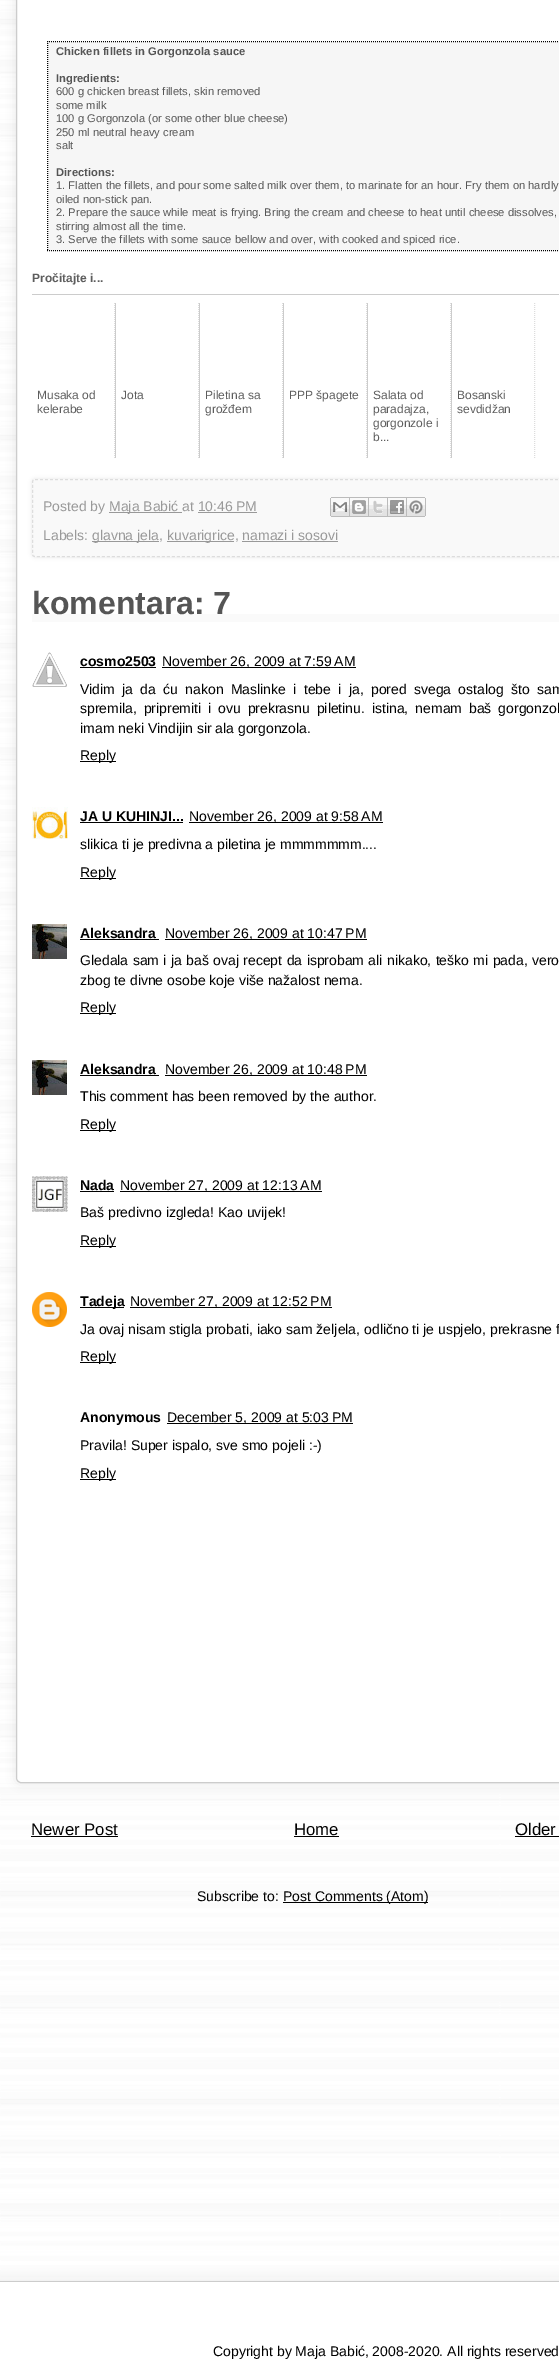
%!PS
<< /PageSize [559 2379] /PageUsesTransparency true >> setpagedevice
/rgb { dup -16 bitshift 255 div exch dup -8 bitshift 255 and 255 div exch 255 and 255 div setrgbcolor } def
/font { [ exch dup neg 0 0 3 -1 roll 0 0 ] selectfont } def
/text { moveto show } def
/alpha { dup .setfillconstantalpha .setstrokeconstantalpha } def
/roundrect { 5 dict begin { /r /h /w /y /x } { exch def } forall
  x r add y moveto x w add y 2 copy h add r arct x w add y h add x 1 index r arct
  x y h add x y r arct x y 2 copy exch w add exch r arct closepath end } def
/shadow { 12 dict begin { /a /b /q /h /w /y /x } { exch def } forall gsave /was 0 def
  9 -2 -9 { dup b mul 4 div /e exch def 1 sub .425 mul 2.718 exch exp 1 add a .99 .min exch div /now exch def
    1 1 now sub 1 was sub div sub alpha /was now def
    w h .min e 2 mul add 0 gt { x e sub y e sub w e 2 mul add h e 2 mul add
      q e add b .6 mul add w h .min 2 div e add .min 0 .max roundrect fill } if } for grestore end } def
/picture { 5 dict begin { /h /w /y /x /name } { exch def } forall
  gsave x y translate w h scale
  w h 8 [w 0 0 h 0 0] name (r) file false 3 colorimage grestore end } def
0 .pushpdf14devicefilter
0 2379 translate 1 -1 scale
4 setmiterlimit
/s1 { /LiberationSans-Bold 11.2 font 16#555555 rgb } def
/s2 { /LiberationSans-Regular 11.2 font 16#555555 rgb } def
/s3 { /LiberationSans-Bold 12 font 16#5D5D5D rgb } def
/s4 { /LiberationSans-Regular 12 font 16#5D5D5D rgb } def
/s5 { /LiberationSans-Regular 14 font 16#999999 rgb } def
/s6 { /LiberationSans-Bold 32 font 16#555555 rgb } def
/s7 { /LiberationSans-Bold 14 font 16#000000 rgb } def
/s8 { /LiberationSans-Regular 14 font 16#000000 rgb } def
/s9 { /LiberationSans-Regular 16.75 font 16#000000 rgb } def
16#FFFFFF rgb
0 0 559 2379 rectfill
(pic1.raw) 0 0 559 2281 picture
16#000000 rgb
16 -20 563 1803 5 5 0.1 shadow
16#FFFFFF rgb
16.5 -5.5 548 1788 4.5 roundrect gsave fill grestore
16#CCCCCC rgb
stroke
16#F6F6F6 rgb
47 41 512 210 rectfill
16#000000 rgb
[1 1] 0 setdash
47 41.5 moveto 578 41.5 lineto stroke
47 250.5 moveto 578 250.5 lineto stroke
47.5 41 moveto 47.5 251 lineto stroke
s1
(Chicken fillets in Gorgonzola sauce) 56 55 text
(Ingredients:) 56 82 text
s2
(600 g chicken breast fillets, skin removed) 56 95 text
(some milk) 56 109 text
(100 g Gorgonzola \(or some other blue cheese\)) 56 122 text
(250 ml neutral heavy cream) 56 136 text
(salt) 56 149 text
s1
(Directions:) 56 176 text
s2
(1. Flatten the fillets, and pour some salted milk over them, to marinate for an hour. Fry them on hardly) 56 189 text
(oiled non-stick pan.) 56 203 text
(2. Prepare the sauce while meat is frying. Bring the cream and cheese to heat until cheese dissolves,) 56 216 text
(stirring almost all the time.) 56 230 text
(3. Serve the fillets with some sauce bellow and over, with cooked and spiced rice.) 56 243 text
s3
(Pročitajte i...) 32 282 text
16#CCCCCC rgb
32 294 527 1 rectfill
16#DDDDDD rgb
114.5 303 moveto 114.5 458 lineto stroke
s4
(Musaka od) 37 399 text
(kelerabe) 37 413 text
16#DDDDDD rgb
198.5 303 moveto 198.5 458 lineto stroke
16#CCCCCC rgb
115 303 1 155 rectfill
s4
(Jota) 121 399 text
16#DDDDDD rgb
282.5 303 moveto 282.5 458 lineto stroke
16#CCCCCC rgb
199 303 1 155 rectfill
s4
(Piletina sa) 205 399 text
(grožđem) 205 413 text
16#DDDDDD rgb
366.5 303 moveto 366.5 458 lineto stroke
16#CCCCCC rgb
283 303 1 155 rectfill
s4
(PPP špagete) 289 399 text
16#DDDDDD rgb
450.5 303 moveto 450.5 458 lineto stroke
16#CCCCCC rgb
367 303 1 155 rectfill
s4
(Salata od) 373 399 text
(paradajza,) 373 413 text
(gorgonzole i) 373 427 text
(b...) 373 441 text
16#DDDDDD rgb
534.5 303 moveto 534.5 458 lineto stroke
16#CCCCCC rgb
451 303 1 155 rectfill
s4
(Bosanski) 457 399 text
(sevdidžan) 457 413 text
16#000000 rgb
32 479 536 78 3 2 0.1 shadow
16#F9F9F9 rgb
32 479 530 78 3 roundrect fill
16#DDDDDD rgb
[3 2] 0 setdash
35 479.5 moveto 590 479.5 lineto 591.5 479.5 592.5 480.5 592.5 482 curveto 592.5 554 lineto 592.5 555.5 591.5 556.5 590 556.5 curveto 35 556.5 lineto 33.5 556.5 32.5 555.5 32.5 554 curveto 32.5 482 lineto 32.5 480.5 33.5 479.5 35 479.5 curveto closepath stroke
s5
(Posted by) 43 511 text
109 512 69 1 rectfill
(Maja Babić at 10:46 PM) 109 511 text
178 512 4 1 rectfill
(pic2.raw) 330 497 20 20 picture
(pic3.raw) 350 497 19 20 picture
(pic4.raw) 369 497 19 20 picture
(pic5.raw) 388 497 19 20 picture
(pic6.raw) 407 497 19 20 picture
198 512 59 1 rectfill
(Labels:) 43 540 text
92 541 67 1 rectfill
(glavna jela,) 92 540 text
167 541 67 1 rectfill
(kuvarigrice, namazi i sosovi) 167 540 text
242 541 96 1 rectfill
16#FAFAFA rgb
32 614 527 8 rectfill
s6
(komentara: 7) 32 614 text
(pic7.raw) 32 652 35 35 picture
s7
(cosmo2503) 80 666 text
80 667 76 1 rectfill
162 667 194 1 rectfill
s8
(November 26, 2009 at 7:59 AM) 162 666 text
80 694 moveto 3.4 0 32 (Vidim ja da ću nakon Maslinke i tebe i ja, pored svega ostalog što sam) widthshow
80 713 moveto 3 0 32 (spremila, pripremiti i ovu prekrasnu piletinu. istina, nemam baš gorgonzol) widthshow
(imam neki Vindijin sir ala gorgonzola.) 80 733 text
80 761 36 1 rectfill
(Reply) 80 760 text
(pic8.raw) 32 807 36 32 picture
s7
(JA U KUHINJI...) 80 821 text
80 822 103 1 rectfill
189 822 194 1 rectfill
s8
(November 26, 2009 at 9:58 AM) 189 821 text
(slikica ti je predivna a piletina je mmmmmmm....) 80 849 text
80 878 36 1 rectfill
(Reply) 80 877 text
(pic9.raw) 32 924 35 35 picture
s7
(Aleksandra) 80 938 text
80 939 79 1 rectfill
165 939 202 1 rectfill
s8
(November 26, 2009 at 10:47 PM) 165 938 text
80 965 moveto 0.5 0 32 (Gledala sam i ja baš ovaj recept da isprobam ali nikako, teško mi pada, vero) widthshow
(zbog te divne osobe koje više nažalost nema.) 80 985 text
80 1013 36 1 rectfill
(Reply) 80 1012 text
(pic9.raw) 32 1060 35 35 picture
s7
(Aleksandra) 80 1074 text
80 1075 79 1 rectfill
165 1075 202 1 rectfill
s8
(November 26, 2009 at 10:48 PM) 165 1074 text
(This comment has been removed by the author.) 80 1101 text
80 1130 36 1 rectfill
(Reply) 80 1129 text
(pic10.raw) 32 1176 36 36 picture
s7
(Nada) 80 1190 text
80 1191 34 1 rectfill
120 1191 202 1 rectfill
s8
(November 27, 2009 at 12:13 AM) 120 1190 text
(Baš predivno izgleda! Kao uvijek!) 80 1217 text
80 1246 36 1 rectfill
(Reply) 80 1245 text
(pic11.raw) 32 1292 35 35 picture
80 1307 44 1 rectfill
s7
(Tadeja) 80 1306 text
130 1307 202 1 rectfill
s8
(November 27, 2009 at 12:52 PM) 130 1306 text
(Ja ovaj nisam stigla probati, iako sam željela, odlično ti je uspjelo, prekrasne f) 80 1334 text
80 1362 36 1 rectfill
(Reply) 80 1361 text
s7
(Anonymous) 80 1422 text
167 1423 186 1 rectfill
s8
(December 5, 2009 at 5:03 PM) 167 1422 text
(Pravila! Super ispalo, sve smo pojeli :-\)) 80 1450 text
80 1479 36 1 rectfill
(Reply) 80 1478 text
s9
(Newer Post) 31 1835 text
31 1836 87 1 rectfill
(Home) 294 1835 text
294 1836 45 1 rectfill
(Older) 515 1835 text
515 1836 44 1 rectfill
s8
(Subscribe to:) 197 1901 text
283 1902 145 1 rectfill
(Post Comments \(Atom\)) 283 1901 text
-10 2281 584 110 0 5 0.1 shadow
16#FFFFFF rgb
0 2282 559 97 rectfill
16#CCCCCC rgb
0 2281 559 1 rectfill
s8
(Copyright by Maja Babić, 2008-2020. All rights reserved) 213 2356 text
.poppdf14devicefilter showpage
